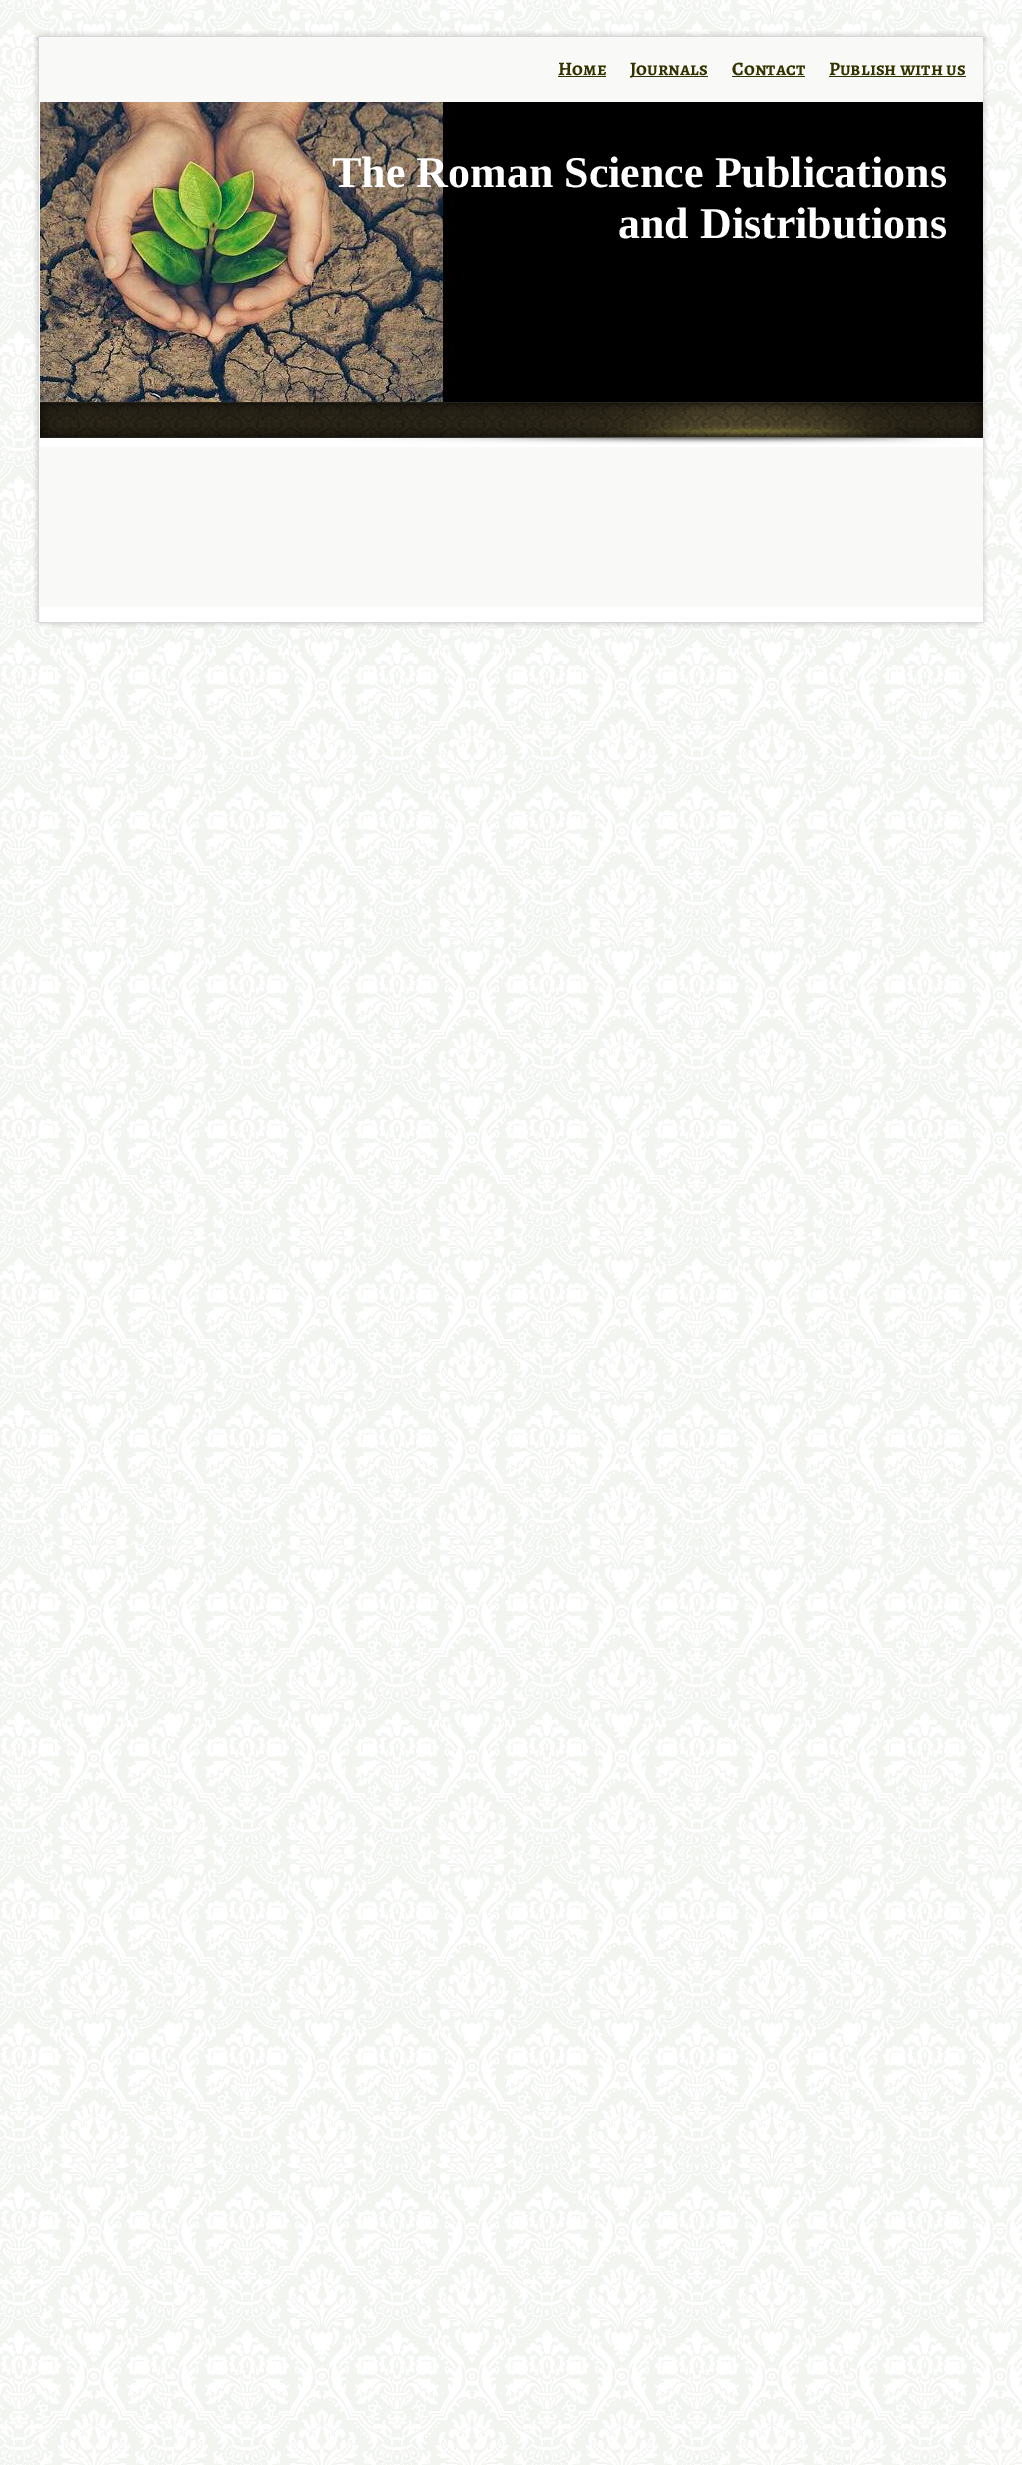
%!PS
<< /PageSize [1022 2465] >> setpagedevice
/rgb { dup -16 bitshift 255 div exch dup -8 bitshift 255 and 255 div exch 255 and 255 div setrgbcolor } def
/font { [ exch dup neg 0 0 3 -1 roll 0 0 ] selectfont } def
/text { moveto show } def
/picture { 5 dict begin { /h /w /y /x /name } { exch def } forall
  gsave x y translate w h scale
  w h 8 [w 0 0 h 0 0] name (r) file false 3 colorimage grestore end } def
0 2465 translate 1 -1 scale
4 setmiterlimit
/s1 { /AlegreyaSC-Bold 19 font 16#333300 rgb } def
/s2 { /LiberationSerif-Bold 44 font 16#FFFFFF rgb } def
16#FFFFFF rgb
0 0 1022 2465 rectfill
(pic1.raw) 0 0 1022 2465 picture
(pic2.raw) 33 31 954 10 picture
(pic3.raw) 33 37 955 585 picture
40 438 943 184 rectfill
16#F9F9F7 rgb
40 37 943 65 rectfill
s1
(Home) 558 75 text
558 76 48 1 rectfill
630 76 78 1 rectfill
(Journals) 630 75 text
(Contact) 732 75 text
732 76 73 1 rectfill
(Publish with us) 829 75 text
829 76 137 1 rectfill
(pic4.raw) 40 102 943 300 picture
s2
(The Roman Science Publications) 332 187 text
(and Distributions) 618 238 text
(pic5.raw) 40 402 943 36 picture
(pic6.raw) 338 437 625 8 picture
16#F9F9F7 rgb
40 447 943 160 rectfill
(pic7.raw) 35 622 951 6 picture
showpage
